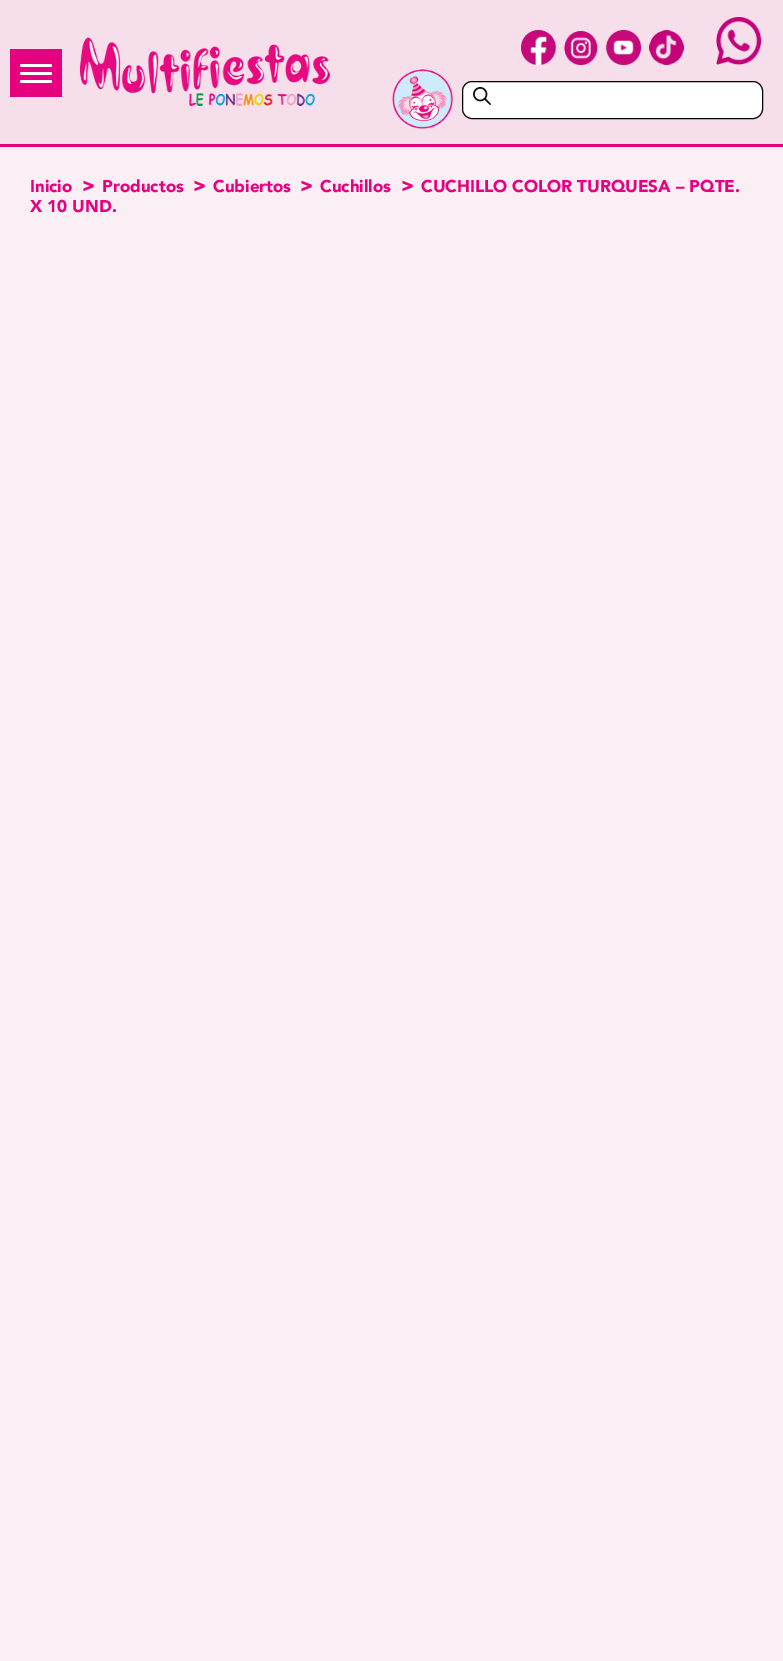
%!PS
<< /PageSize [783 1661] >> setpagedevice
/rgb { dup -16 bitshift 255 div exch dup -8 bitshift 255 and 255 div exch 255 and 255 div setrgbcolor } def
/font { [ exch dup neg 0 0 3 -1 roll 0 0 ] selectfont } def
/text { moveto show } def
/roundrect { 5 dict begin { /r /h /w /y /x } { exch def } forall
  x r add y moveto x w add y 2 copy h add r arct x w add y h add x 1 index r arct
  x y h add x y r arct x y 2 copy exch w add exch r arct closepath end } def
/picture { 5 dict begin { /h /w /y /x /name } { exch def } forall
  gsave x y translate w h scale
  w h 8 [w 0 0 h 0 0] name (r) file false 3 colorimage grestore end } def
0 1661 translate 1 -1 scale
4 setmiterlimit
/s1 { /Avenir-Black 17 font 16#E6027E rgb } def
16#FAEFF5 rgb
0 0 783 1661 rectfill
16#F6DFEA rgb
0 0 783 144 rectfill
16#E6027E rgb
0 144 783 3 rectfill
(pic1.raw) 80 37 250 69 picture
(pic2.raw) 392 69 61 60 picture
(pic3.raw) 521 30 35 35 picture
(pic4.raw) 564 31 34 34 picture
(pic5.raw) 606 30 35 35 picture
(pic6.raw) 649 30 35 35 picture
(pic7.raw) 716 17 45 48 picture
16#FFFFFF rgb
462.5 81.5 300 37 9.5 roundrect gsave fill grestore
16#000000 rgb
stroke
(pic8.raw) 473 87 18 18 picture
16#E6027E rgb
10 49 52 48 rectfill
16#FFFFFF rgb
20 64 32 3 1.5 roundrect fill
20 72 32 3 1.5 roundrect fill
20 80 32 3 1.5 roundrect fill
s1
(Inicio) 30 192 text
/Avenir-Black 20 font
82 192 moveto -3 0 (>) ashow
s1
(Productos) 102 192 text
/Avenir-Black 20 font
193 192 moveto -3 0 (>) ashow
s1
(Cubiertos) 213 192 text
/Avenir-Black 20 font
300 192 moveto -3 0 (>) ashow
s1
(Cuchillos) 320 192 text
/Avenir-Black 20 font
401 192 moveto -3 0 (>) ashow
s1
(CUCHILLO COLOR TURQUESA – PQTE.) 421 192 text
(X 10 UND.) 30 212 text
showpage
